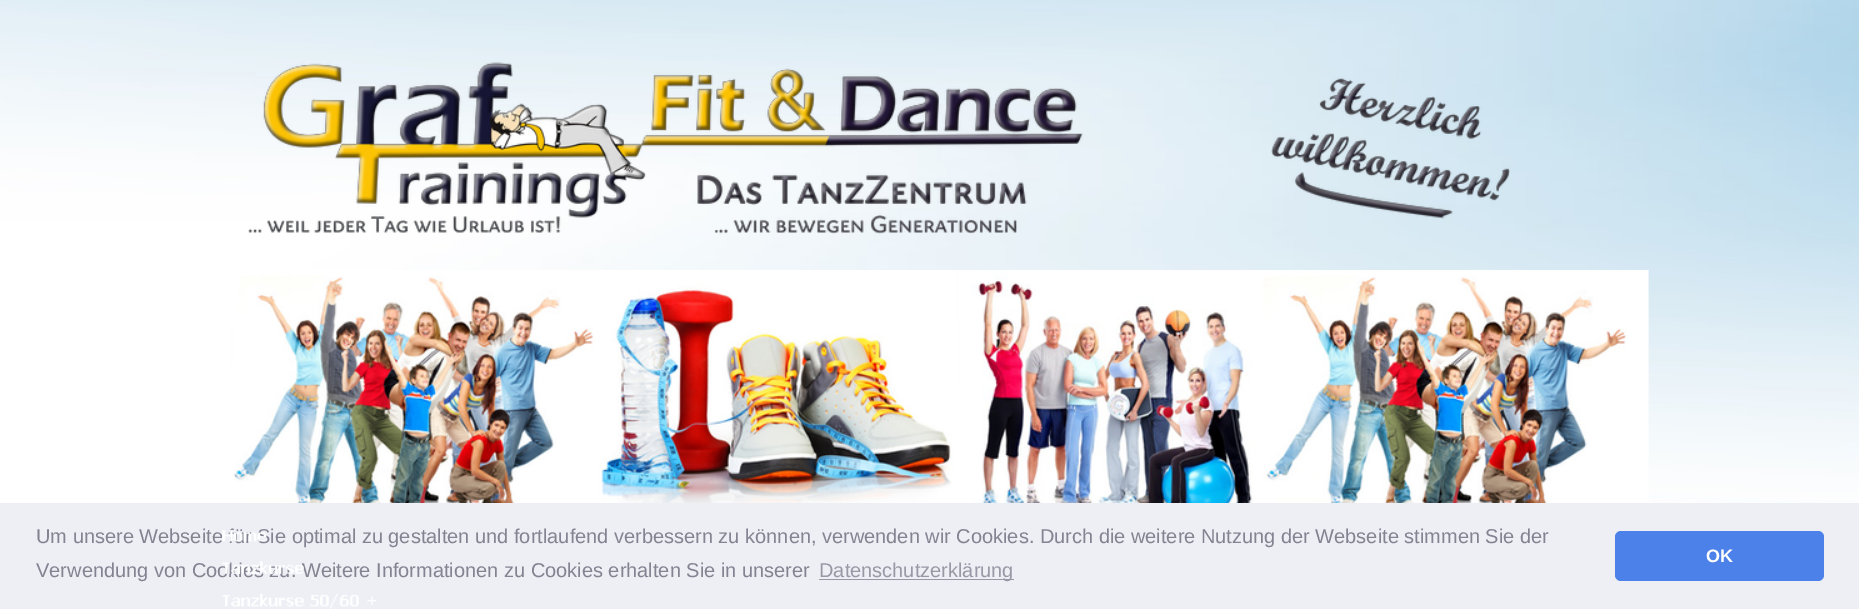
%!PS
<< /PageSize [1859 609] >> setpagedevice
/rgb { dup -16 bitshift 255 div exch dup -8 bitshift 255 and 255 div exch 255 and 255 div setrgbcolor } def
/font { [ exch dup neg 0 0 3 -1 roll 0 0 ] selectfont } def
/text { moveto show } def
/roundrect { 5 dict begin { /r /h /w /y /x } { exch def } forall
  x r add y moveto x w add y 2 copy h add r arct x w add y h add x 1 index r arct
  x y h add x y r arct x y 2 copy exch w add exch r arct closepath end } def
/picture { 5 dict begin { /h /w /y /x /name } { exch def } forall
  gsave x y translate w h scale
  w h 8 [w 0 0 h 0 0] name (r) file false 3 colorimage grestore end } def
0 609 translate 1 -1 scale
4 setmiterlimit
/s1 { /LiberationSans-Regular 20 font 16#838391 rgb } def
/s2 { /LiberationSans-Regular 20 font 16#9899A5 rgb } def
/s3 { /LiberationSans-Bold 18 font 16#FFFFFF rgb } def
16#FFFFFF rgb
0 0 1859 609 rectfill
(pic1.raw) 0 0 1859 503 picture
(pic2.raw) 248 62 1262 172 picture
(pic3.raw) 233 270 1416 233 picture
16#EDEFF5 rgb
0 503 1859 106 rectfill
s1
(Um unsere Webseite für Sie optimal zu gestalten und fortlaufend verbessern zu können, verwenden wir Cookies. Durch die weitere Nutzung der Webseite stimmen Sie der) 36 543 text
(pic4.raw) 222 529 45 13 picture
(Verwendung von Cookies zu. Weitere Informationen zu Cookies erhalten Sie in unserer) 36 577 text
(pic5.raw) 222 561 82 13 picture
(pic6.raw) 222 593 155 16 picture
16#9899A5 rgb
819 579 195 1 rectfill
(Datenschutzerklärung) 819 577 text
16#4B81E8 rgb
1615 531 209 50 6 roundrect fill
s3
(OK) 1706 562 text
showpage
